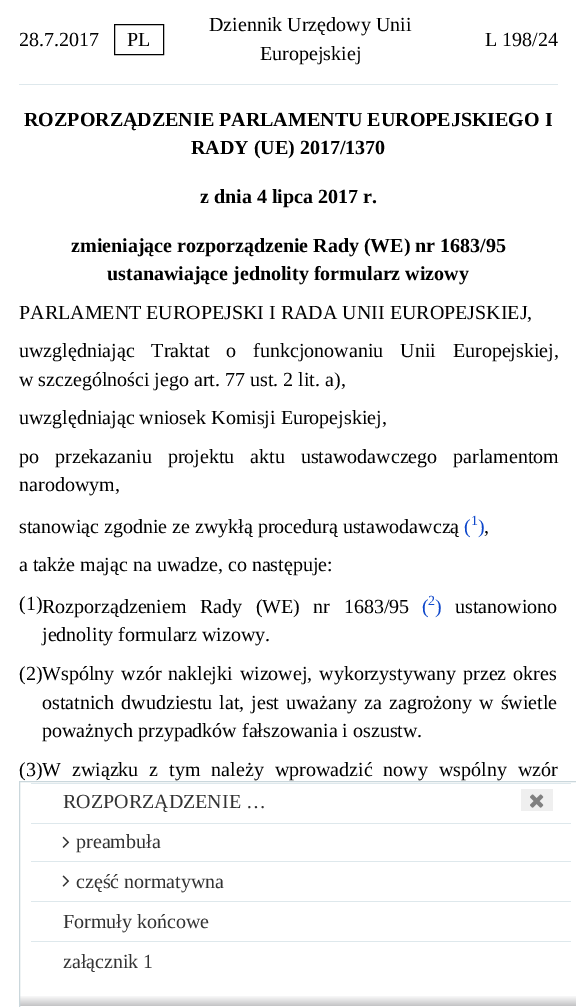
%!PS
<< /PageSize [576 1007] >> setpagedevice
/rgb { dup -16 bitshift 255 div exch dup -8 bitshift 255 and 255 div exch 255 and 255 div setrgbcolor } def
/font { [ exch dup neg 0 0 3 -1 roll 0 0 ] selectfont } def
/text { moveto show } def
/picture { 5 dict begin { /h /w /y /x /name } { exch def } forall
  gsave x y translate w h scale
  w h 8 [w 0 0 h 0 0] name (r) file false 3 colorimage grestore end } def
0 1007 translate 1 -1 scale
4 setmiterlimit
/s1 { /LiberationSerif-Regular 20 font 16#000000 rgb } def
/s2 { /LiberationSerif-Bold 20 font 16#000000 rgb } def
/s3 { /LiberationSerif-Regular 20 font 16#0E47CB rgb } def
/s4 { /LiberationSerif-Regular 14 font 16#0E47CB rgb } def
/s5 { /LiberationSerif-Regular 20 font 16#333333 rgb } def
16#FFFFFF rgb
0 0 576 1007 rectfill
s1
(28.7.2017) 19 46 text
114.5 24.5 49 30 rectstroke
(PL) 127 46 text
(Dziennik Urzędowy Unii) 209 31 text
(Europejskiej) 260 60 text
(L 198/24) 485 46 text
16#DEE8EC rgb
19 84 539 1 rectfill
s2
(ROZPORZĄDZENIE PARLAMENTU EUROPEJSKIEGO I) 24 126 text
(RADY \(UE\) 2017/1370) 191 154 text
(z dnia 4 lipca 2017 r.) 200 203 text
(zmieniające rozporządzenie Rady \(WE\) nr 1683/95) 71 252 text
(ustanawiające jednolity formularz wizowy) 107 280 text
s1
(PARLAMENT EUROPEJSKI I RADA UNII EUROPEJSKIEJ,) 19 319 text
19 357 moveto 12 0 32 (uwzględniając Traktat o funkcjonowaniu Unii Europejskiej,) widthshow
(w szczególności jego art. 77 ust. 2 lit. a\),) 19 386 text
(uwzględniając wniosek Komisji Europejskiej,) 19 424 text
19 463 moveto 11 0 32 (po przekazaniu projektu aktu ustawodawczego parlamentom) widthshow
(narodowym,) 19 491 text
(stanowiąc zgodnie ze zwykłą procedurą ustawodawczą) 19 533 text
s3
(\() 464 533 text
s4
(1) 471 525 text
s3
(\)) 478 533 text
s1
(,) 484 533 text
(a także mając na uwadze, co następuje:) 19 571 text
(\(1\)) 19 610 text
42 613 moveto 8.5 0 32 (Rozporządzeniem Rady \(WE\) nr 1683/95) widthshow
s3
(\() 422 613 text
s4
(2) 428 605 text
s3
(\)) 435 613 text
s1
(ustanowiono) 455 613 text
(jednolity formularz wizowy.) 42 641 text
(\(2\)) 19 680 text
42 680 moveto 2 0 32 (Wspólny wzór naklejki wizowej, wykorzystywany przez okres) widthshow
42 709 moveto 2 0 32 (ostatnich dwudziestu lat, jest uważany za zagrożony w świetle) widthshow
(poważnych przypadków fałszowania i oszustw.) 42 737 text
(\(3\)) 19 776 text
42 776 moveto 6 0 32 (W związku z tym należy wprowadzić nowy wspólny wzór) widthshow
gsave 20 995 moveto 576 995 lineto 576 1006 lineto 20 1006 lineto closepath clip newpath
<< /ShadingType 2 /ColorSpace /DeviceRGB /Coords [302 1006 302 995] /Extend [true true] /Function << /FunctionType 2 /Domain [0 1] /C0 [0.765 0.765 0.773] /C1 [1 1 1] /N 1 >> >> shfill grestore
16#CAD7DC rgb
19.5 781.5 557 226 rectstroke
16#DEE8EC rgb
31 783 540 1 rectfill
s5
(ROZPORZĄDZENIE …) 63 808 text
16#DEE8EC rgb
31 823 540 1 rectfill
(pic1.raw) 62 836 8 12 picture
s5
(preambuła) 76 848 text
16#DEE8EC rgb
31 861 540 1 rectfill
(pic2.raw) 62 875 8 12 picture
s5
(część normatywna) 76 888 text
16#DEE8EC rgb
31 901 540 1 rectfill
s5
(Formuły końcowe) 63 928 text
16#DEE8EC rgb
31 941 540 1 rectfill
s5
(załącznik 1) 63 968 text
16#EFEFEF rgb
521 789 32 22 rectfill
(pic3.raw) 530 794 14 14 picture
showpage
